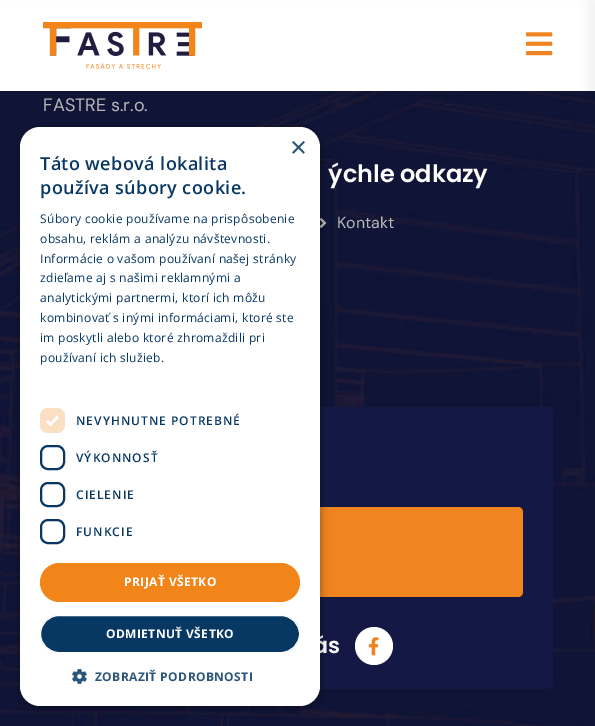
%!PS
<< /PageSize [595 726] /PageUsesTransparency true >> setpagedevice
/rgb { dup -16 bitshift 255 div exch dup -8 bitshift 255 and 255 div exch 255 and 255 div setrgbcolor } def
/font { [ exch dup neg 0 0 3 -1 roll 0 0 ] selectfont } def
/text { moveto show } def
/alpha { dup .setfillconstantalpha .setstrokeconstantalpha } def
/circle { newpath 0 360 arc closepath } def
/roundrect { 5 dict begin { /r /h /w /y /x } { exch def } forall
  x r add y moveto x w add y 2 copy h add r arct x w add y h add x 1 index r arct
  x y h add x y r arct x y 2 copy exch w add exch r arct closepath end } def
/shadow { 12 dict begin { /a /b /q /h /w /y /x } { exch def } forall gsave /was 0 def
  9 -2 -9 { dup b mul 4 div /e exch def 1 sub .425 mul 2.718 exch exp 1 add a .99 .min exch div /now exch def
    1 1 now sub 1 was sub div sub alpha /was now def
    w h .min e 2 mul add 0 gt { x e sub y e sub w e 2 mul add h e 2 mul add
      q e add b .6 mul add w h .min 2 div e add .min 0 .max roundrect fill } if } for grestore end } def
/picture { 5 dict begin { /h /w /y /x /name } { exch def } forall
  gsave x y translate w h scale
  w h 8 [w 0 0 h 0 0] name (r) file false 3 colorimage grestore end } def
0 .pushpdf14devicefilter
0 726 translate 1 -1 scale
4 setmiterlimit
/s1 { /DMSans-Regular 18 font 16#B8B8B8 rgb } def
/s2 { /Poppins-SemiBold 24 font 16#FFFFFF rgb } def
/s3 { /DMSans-Regular 16 font 16#B8B8B8 rgb } def
/s4 { /Poppins-SemiBold 22 font 16#FFFFFF rgb } def
/s5 { /LiberationSans-Regular 29 font 16#2C557A rgb } def
16#FFFFFF rgb
0 0 595 726 rectfill
(pic3.raw) 0 91 595 635 picture
16#191919 rgb
0 10 595 91 0 7.5 0.1 shadow
16#FFFFFF rgb
0 1 595 90 rectfill
(pic1.raw) 43 22 159 47 picture
(pic2.raw) 526 32 27 24 picture
16#000000 rgb
589 0 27 726 0 7 0.06 shadow
s1
(FASTRE s.r.o.) 43 111 text
s2
(ýchle odkazy) 328 182 text
(pic4.raw) 320 218 7 10 picture
s3
(Kontakt) 337 228 text
16#131944 rgb
43 407 510 282 5 roundrect fill
16#EF8421 rgb
73 507 450 90 5 roundrect fill
s4
(ás) 313 653 text
374 646 19 circle fill
(pic5.raw) 368 637 11 19 picture
16#000000 rgb
21 129 300 579 20 4 0.35 shadow
16#FFFFFF rgb
20 127 300 579 20 roundrect fill
s5
(×) 290 157 text
/OpenSans-SemiBold 18 font
16#073763 rgb
40 170 moveto 0.4 0 (Táto webová lokalita) ashow
40 194 moveto 0.4 0 (používa súbory cookie.) ashow
/OpenSans-Regular 12 font
40 223 moveto 0.3 0 (Súbory cookie používame na prispôsobenie) ashow
40 243 moveto 0.3 0 (obsahu, reklám a analýzu návštevnosti.) ashow
40 263 moveto 0.3 0 (Informácie o vašom používaní našej stránky) ashow
40 282 moveto 0.3 0 (zdieľame aj s našimi reklamnými a) ashow
40 302 moveto 0.3 0 (analytickými partnermi, ktorí ich môžu) ashow
40 322 moveto 0.3 0 (kombinovať s inými informáciami, ktoré ste) ashow
40 342 moveto 0.3 0 (im poskytli alebo ktoré zhromaždili pri) ashow
40 362 moveto 0.3 0 (používaní ich služieb.) ashow
16#FBDFC3 rgb
40 408 25 25 8 roundrect fill
16#FFFFFF rgb
2.6 setlinewidth
47 421 moveto 50.5 424.5 lineto 58 416.5 lineto stroke
/OpenSans-SemiBold 12 font
16#073763 rgb
76 425 moveto 1 0 (NEVYHNUTNE POTREBNÉ) ashow
2 setlinewidth
41 446 23 23 7 roundrect stroke
76 462 moveto 1 0 (VÝKONNOSŤ) ashow
41 483 23 23 7 roundrect stroke
76 499 moveto 1 0 (CIELENIE) ashow
41 520 23 23 7 roundrect stroke
76 536 moveto 1 0 (FUNKCIE) ashow
16#F18519 rgb
40 563 260 39 19.5 roundrect fill
/OpenSans-Bold 12 font
16#FFFFFF rgb
124 586 moveto 0.4 0 (PRIJAŤ VŠETKO) ashow
16#073763 rgb
40.5 615.5 259 37 18.5 roundrect gsave fill grestore
16#FFFFFF rgb
1 setlinewidth
stroke
106 638 moveto 0.4 0 (ODMIETNUŤ VŠETKO) ashow
(pic6.raw) 72 669 15 15 picture
16#2C557A rgb
95 681 moveto 0.4 0 (ZOBRAZIŤ PODROBNOSTI) ashow
.poppdf14devicefilter showpage
